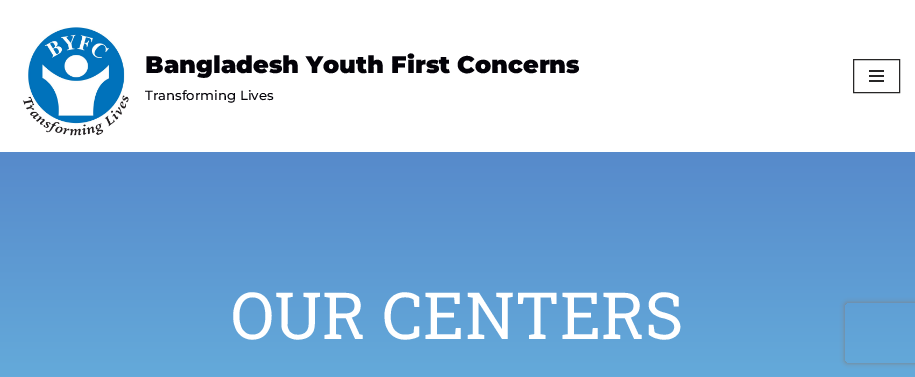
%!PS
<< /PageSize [915 377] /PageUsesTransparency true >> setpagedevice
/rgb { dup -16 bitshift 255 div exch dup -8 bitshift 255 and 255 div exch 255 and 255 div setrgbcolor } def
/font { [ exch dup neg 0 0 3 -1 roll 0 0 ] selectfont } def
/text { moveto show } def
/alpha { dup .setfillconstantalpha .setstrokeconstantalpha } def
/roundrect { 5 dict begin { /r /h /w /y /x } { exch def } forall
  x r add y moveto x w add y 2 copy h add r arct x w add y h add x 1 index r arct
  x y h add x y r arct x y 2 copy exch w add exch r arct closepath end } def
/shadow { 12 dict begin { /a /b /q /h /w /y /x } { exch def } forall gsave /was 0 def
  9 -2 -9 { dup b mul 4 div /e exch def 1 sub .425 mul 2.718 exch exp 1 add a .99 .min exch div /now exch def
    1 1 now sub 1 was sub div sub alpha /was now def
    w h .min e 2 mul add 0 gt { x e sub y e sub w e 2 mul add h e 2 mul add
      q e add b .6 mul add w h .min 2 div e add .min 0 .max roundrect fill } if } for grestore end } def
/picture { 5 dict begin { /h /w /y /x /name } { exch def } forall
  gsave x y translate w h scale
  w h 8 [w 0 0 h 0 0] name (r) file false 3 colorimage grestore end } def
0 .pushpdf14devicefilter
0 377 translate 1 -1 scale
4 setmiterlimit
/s1 { /Montserrat-Black 24 font 16#030208 rgb } def
/s2 { /Montserrat-Medium 13.25 font 16#030208 rgb } def
/s3 { /RobotoSlab-Regular 65 font 16#FFFFFF rgb } def
16#FFFFFF rgb
0 0 915 377 rectfill
(pic1.raw) 22 27 107 109 picture
s1
(Bangladesh Youth First Concerns) 145 73 text
s2
(Transforming Lives) 145 100 text
16#272626 rgb
853.5 59.5 46 33 rectstroke
869 70 15 2 rectfill
869 75 15 2 rectfill
869 80 15 2 rectfill
gsave 0 152 moveto 915 152 lineto 915 377 lineto 0 377 lineto closepath clip newpath
<< /ShadingType 2 /ColorSpace /DeviceRGB /Coords [458 152 458 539] /Extend [true true] /Function << /FunctionType 2 /Domain [0 1] /C0 [0.341 0.541 0.796] /C1 [0.431 0.757 0.894] /N 1 >> >> shfill grestore
s3
(OUR CENTERS) 231 339 text
gsave
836 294 moveto 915 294 lineto 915 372 lineto 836 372 lineto closepath 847 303 moveto 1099 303 lineto 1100 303 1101 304 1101 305 curveto 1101 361 lineto 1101 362 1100 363 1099 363 curveto 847 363 lineto 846 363 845 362 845 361 curveto 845 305 lineto 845 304 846 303 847 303 curveto closepath eoclip newpath
16#808080 rgb
845 303 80 60 2 2.5 1 shadow
grestore
.poppdf14devicefilter showpage
